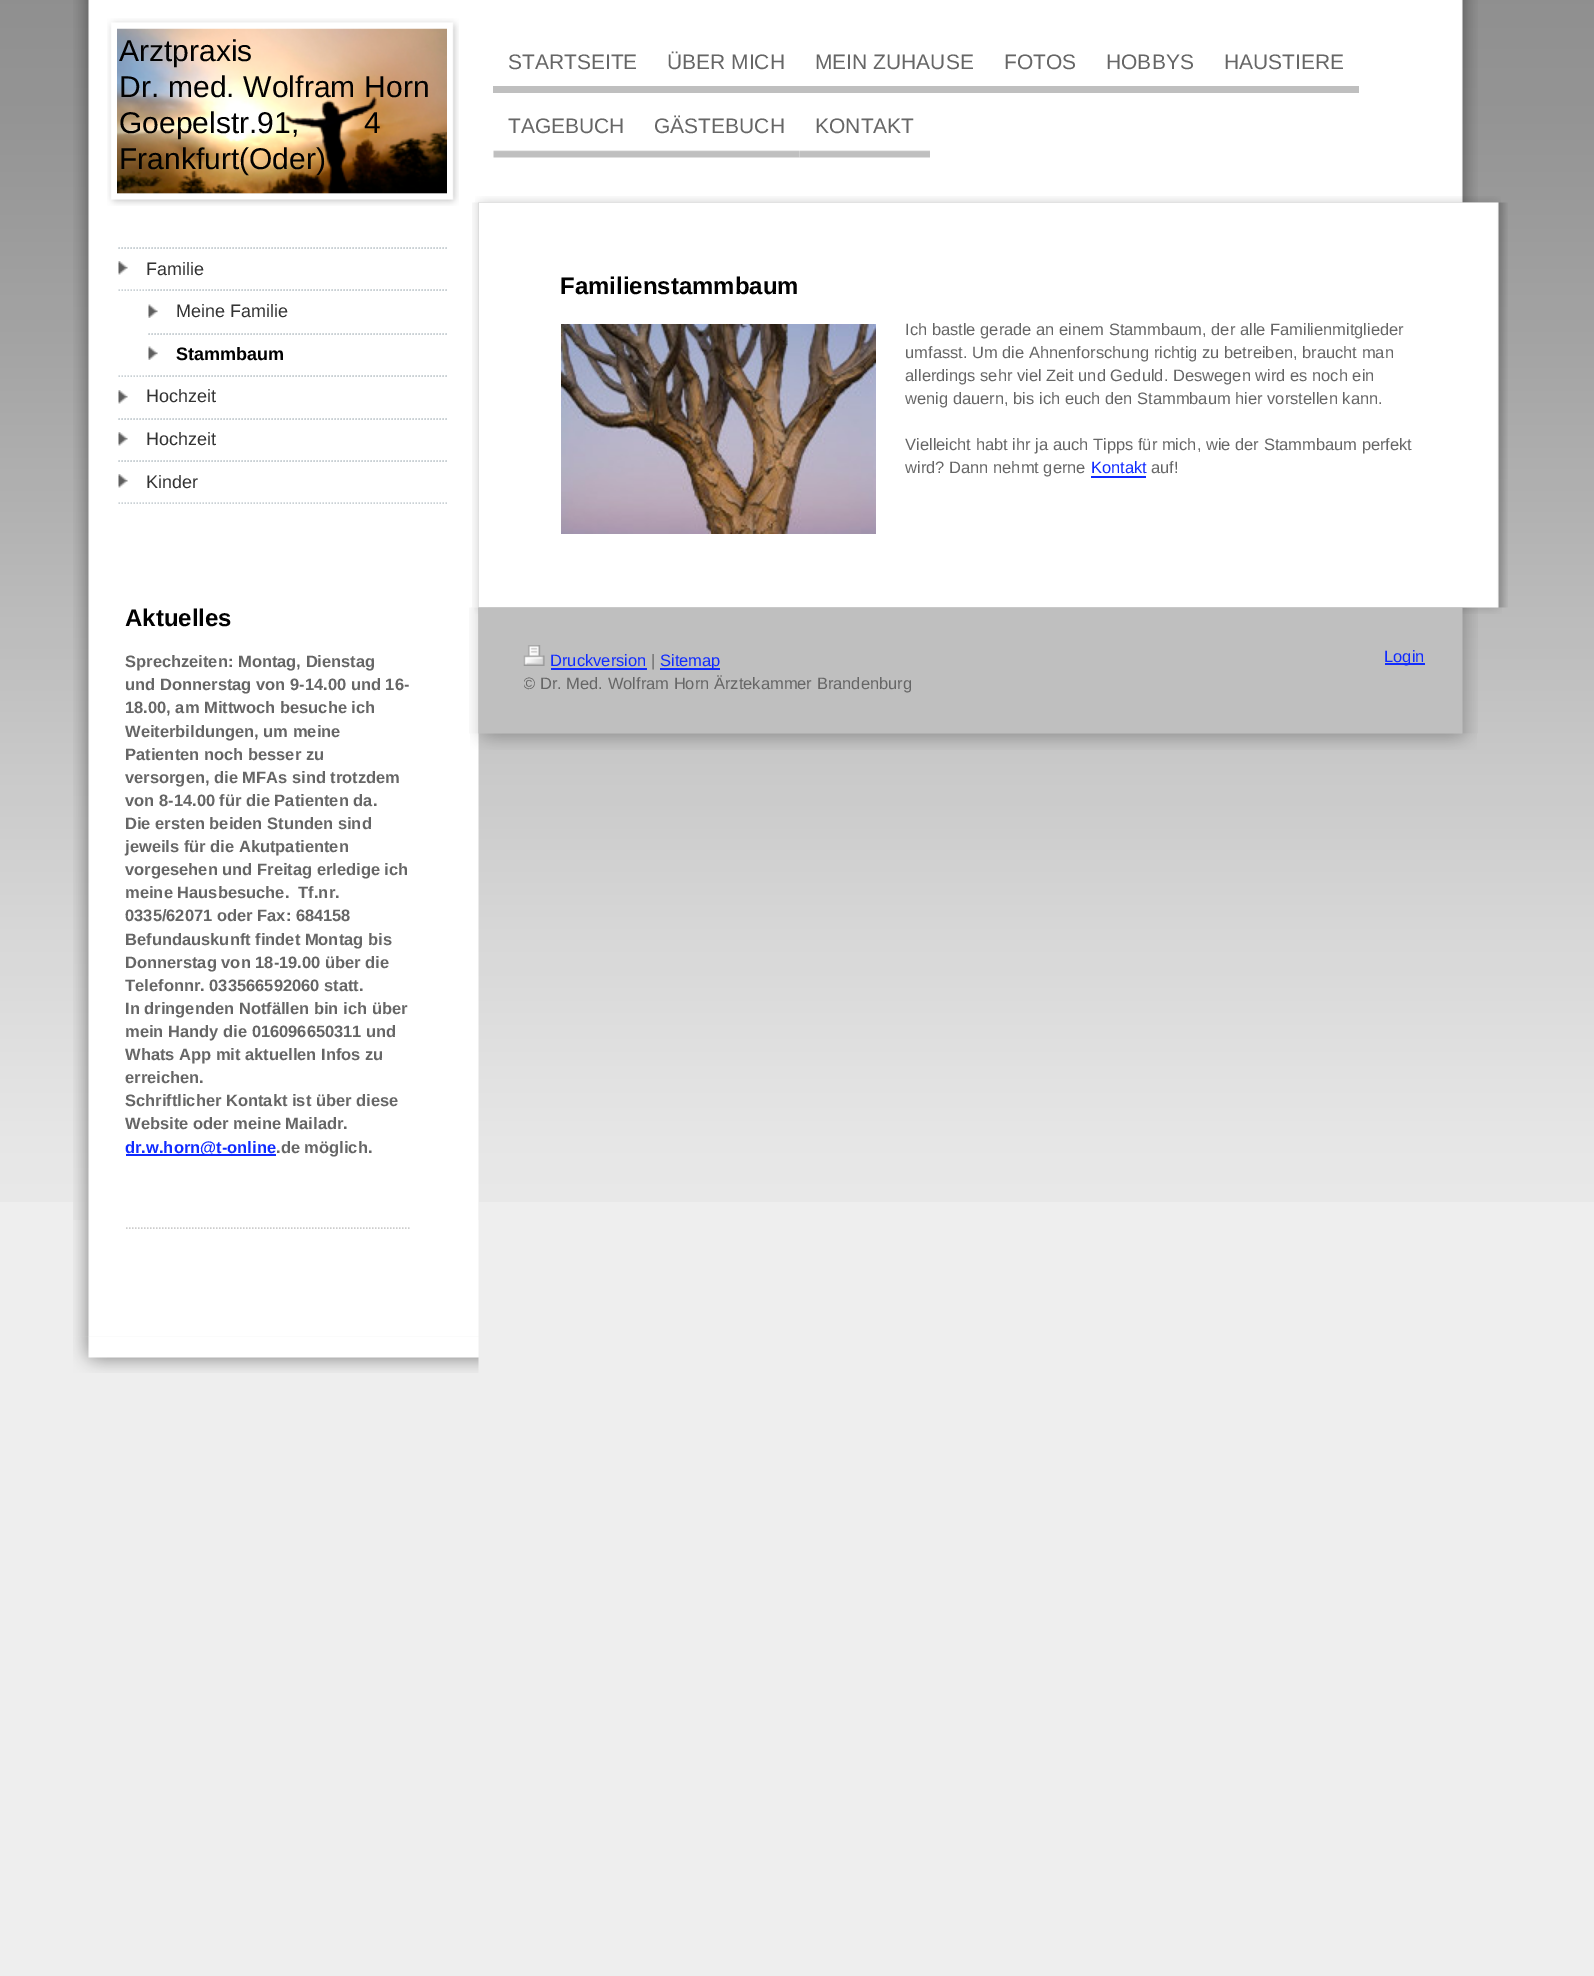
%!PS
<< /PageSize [1594 1976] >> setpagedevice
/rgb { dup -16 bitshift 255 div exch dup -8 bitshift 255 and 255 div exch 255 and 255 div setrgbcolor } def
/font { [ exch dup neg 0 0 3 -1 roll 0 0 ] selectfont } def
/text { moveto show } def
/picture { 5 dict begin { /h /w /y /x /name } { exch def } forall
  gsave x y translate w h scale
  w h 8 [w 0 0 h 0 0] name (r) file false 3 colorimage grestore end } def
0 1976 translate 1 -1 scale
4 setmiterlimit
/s1 { /LiberationSans-Regular 30 font 16#010101 rgb } def
/s2 { /LiberationSans-Regular 18 font 16#333333 rgb } def
/s3 { /LiberationSans-Bold 18 font 16#010101 rgb } def
/s4 { /LiberationSans-Bold 24 font 16#010101 rgb } def
/s5 { /LiberationSans-Bold 16.5 font 16#666666 rgb } def
/s6 { /LiberationSans-Bold 16.5 font 16#102BFF rgb } def
/s7 { /LiberationSans-Regular 21 font 16#666666 rgb } def
/s8 { /LiberationSans-Regular 16.5 font 16#666666 rgb } def
/s9 { /LiberationSans-Regular 16.5 font 16#102BFF rgb } def
16#EEEEEE rgb
0 0 1594 1976 rectfill
(pic1.raw) 0 0 1594 1202 picture
(pic2.raw) 73 0 406 1337 picture
(pic3.raw) 107 18 352 188 picture
117 193 330 1 rectfill
(pic4.raw) 117 28 330 166 picture
s1
(Arztpraxis) 119 61 text
119 97 moveto 0.1 0 (Dr. med. Wolfram Horn) ashow
(Goepelstr.91,) 119 133 text
(4) 364 133 text
(Frankfurt\(Oder\)) 119 169 text
16#CAD1D5 rgb
1.5 setlinewidth
[1.5 1.5] 0 setdash
118.5 248 moveto 448.5 248 lineto stroke
(pic5.raw) 118 261 10 14 picture
118.5 248 moveto 448.5 248 lineto stroke
118.5 290 moveto 448.5 290 lineto stroke
s2
(Familie) 146 275 text
(pic6.raw) 148 304 10 14 picture
16#CAD1D5 rgb
148.5 290 moveto 448.5 290 lineto stroke
148.5 334 moveto 448.5 334 lineto stroke
s2
(Meine Familie) 176 317 text
(pic6.raw) 148 346 10 14 picture
16#CAD1D5 rgb
148.5 334 moveto 448.5 334 lineto stroke
148.5 376 moveto 448.5 376 lineto stroke
s3
(Stammbaum) 176 360 text
(pic5.raw) 118 390 10 14 picture
16#CAD1D5 rgb
118.5 376 moveto 448.5 376 lineto stroke
118.5 419 moveto 448.5 419 lineto stroke
s2
(Hochzeit) 146 402 text
(pic5.raw) 118 432 10 14 picture
16#CAD1D5 rgb
118.5 419 moveto 448.5 419 lineto stroke
118.5 461 moveto 448.5 461 lineto stroke
s2
(Hochzeit) 146 445 text
(pic5.raw) 118 474 10 14 picture
16#CAD1D5 rgb
118.5 461 moveto 448.5 461 lineto stroke
118.5 503 moveto 448.5 503 lineto stroke
s2
(Kinder) 146 488 text
s4
(Aktuelles) 125 626 text
s5
(Sprechzeiten: Montag, Dienstag) 125 667 text
(und Donnerstag von 9-14.00 und 16-) 125 690 text
(18.00, am Mittwoch besuche ich) 125 713 text
(Weiterbildungen, um meine) 125 737 text
(Patienten noch besser zu) 125 760 text
(versorgen, die MFAs sind trotzdem) 125 783 text
(von 8-14.00 für die Patienten da.) 125 806 text
(Die ersten beiden Stunden sind) 125 829 text
(jeweils für die Akutpatienten) 125 852 text
(vorgesehen und Freitag erledige ich) 125 875 text
(meine Hausbesuche.  Tf.nr.) 125 898 text
(0335/62071 oder Fax: 684158) 125 921 text
(Befundauskunft findet Montag bis) 125 945 text
(Donnerstag von 18-19.00 über die) 125 968 text
(Telefonnr. 033566592060 statt.) 125 991 text
(In dringenden Notfällen bin ich über) 125 1014 text
(mein Handy die 016096650311 und) 125 1037 text
(Whats App mit aktuellen Infos zu) 125 1060 text
(erreichen.) 125 1083 text
(Schriftlicher Kontakt ist über diese) 125 1106 text
(Website oder meine Mailadr.) 125 1129 text
16#102BFF rgb
126 1154 150 2 rectfill
(dr.w.horn@t-online) 125 1153 text
s5
(.de möglich.) 276 1153 text
16#CCCCCC rgb
126 1228 moveto 411 1228 lineto stroke
(pic7.raw) 73 1336 406 37 picture
(pic8.raw) 478 0 1000 203 picture
16#BFBFBF rgb
493 86 866 7 rectfill
s7
(STARTSEITE) 508 69 text
(ÜBER MICH) 667 69 text
(MEIN ZUHAUSE) 815 69 text
(FOTOS) 1004 69 text
(HOBBYS) 1106 69 text
(HAUSTIERE) 1224 69 text
(pic9.raw) 493 150 146 8 picture
(TAGEBUCH) 508 133 text
(pic10.raw) 639 150 161 8 picture
(GÄSTEBUCH) 654 133 text
(pic11.raw) 799 150 131 8 picture
(KONTAKT) 815 133 text
(pic12.raw) 475 196 1026 7 picture
(pic13.raw) 472 202 1036 406 picture
s4
(Familienstammbaum) 560 294 text
(pic14.raw) 561 324 315 210 picture
s8
(Ich bastle gerade an einem Stammbaum, der alle Familienmitglieder) 905 335 text
(umfasst. Um die Ahnenforschung richtig zu betreiben, braucht man) 905 358 text
(allerdings sehr viel Zeit und Geduld. Deswegen wird es noch ein) 905 381 text
(wenig dauern, bis ich euch den Stammbaum hier vorstellen kann.) 905 404 text
(Vielleicht habt ihr ja auch Tipps für mich, wie der Stammbaum perfekt) 905 450 text
(wird? Dann nehmt gerne) 905 473 text
s9
(Kontakt) 1091 473 text
1091 476 55 2 rectfill
s8
(auf!) 1151 473 text
(pic15.raw) 475 607 1027 7 picture
(pic16.raw) 469 607 1009 127 picture
(pic17.raw) 523 645 22 21 picture
s9
(Druckversion) 550 666 text
551 668 96 2 rectfill
s8
(|) 651 666 text
16#102BFF rgb
660 668 60 2 rectfill
(Sitemap) 660 666 text
gsave
524 645 901 51 rectclip
s8
(© Dr. Med. Wolfram Horn Ärztekammer Brandenburg) 523 689 text
grestore
1385 663 40 2 rectfill
(Login) 1384 662 text
(pic18.raw) 470 733 1007 17 picture
showpage
